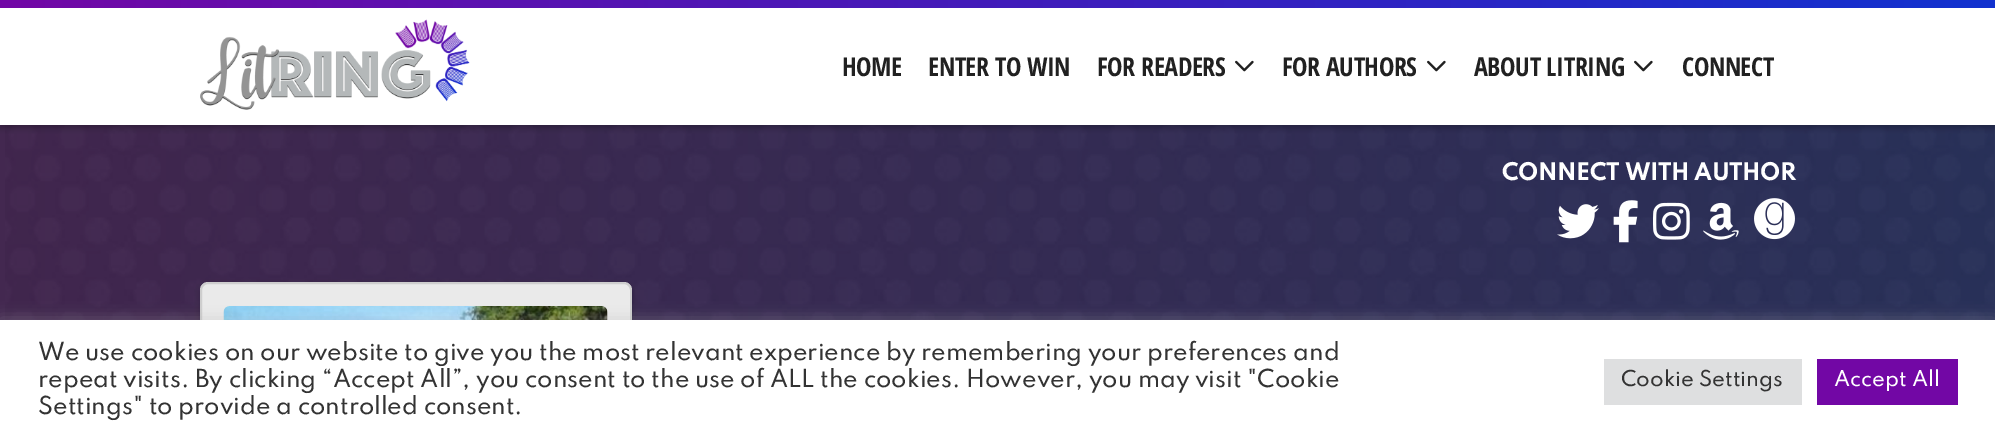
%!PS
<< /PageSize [1995 442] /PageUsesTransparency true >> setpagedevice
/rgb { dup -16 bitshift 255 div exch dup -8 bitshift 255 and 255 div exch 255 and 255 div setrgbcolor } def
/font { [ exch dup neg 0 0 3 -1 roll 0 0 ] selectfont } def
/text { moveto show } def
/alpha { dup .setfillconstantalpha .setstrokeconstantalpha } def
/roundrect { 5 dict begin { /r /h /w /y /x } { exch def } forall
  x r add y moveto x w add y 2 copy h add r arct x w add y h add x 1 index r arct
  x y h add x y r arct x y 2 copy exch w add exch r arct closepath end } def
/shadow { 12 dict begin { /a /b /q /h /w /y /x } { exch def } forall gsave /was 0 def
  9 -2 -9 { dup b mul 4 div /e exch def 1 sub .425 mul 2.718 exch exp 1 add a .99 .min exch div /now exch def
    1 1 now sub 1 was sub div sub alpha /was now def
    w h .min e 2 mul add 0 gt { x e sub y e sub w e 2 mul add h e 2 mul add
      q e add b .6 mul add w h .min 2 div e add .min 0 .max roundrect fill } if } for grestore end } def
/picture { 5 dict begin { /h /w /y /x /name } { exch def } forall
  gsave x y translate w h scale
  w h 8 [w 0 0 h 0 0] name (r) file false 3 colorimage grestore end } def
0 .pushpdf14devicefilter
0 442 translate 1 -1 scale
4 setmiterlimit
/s1 { /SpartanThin-Medium 22 font 16#333333 rgb } def
/s2 { /SpartanThin-Medium 19.5 font 16#333333 rgb } def
/s3 { /SpartanThin-Medium 19.5 font 16#FFFFFF rgb } def
16#333333 rgb
0 0 1995 442 rectfill
(pic3.raw) 5 125 1989 195 picture
0.25 alpha
gsave 0 125 moveto 1995 125 lineto 1995 320 lineto 0 320 lineto closepath clip newpath
<< /ShadingType 2 /ColorSpace /DeviceRGB /Coords [0 249 1995 249] /Extend [true true] /Function << /FunctionType 2 /Domain [0 1] /C0 [0.447 0.027 0.647] /C1 [0.067 0.196 0.812] /N 1 >> >> shfill grestore
1 alpha
16#000000 rgb
0 3 1995 125 0 3 0.25 shadow
16#FFFFFF rgb
0 8 1995 117 rectfill
gsave 0 0 moveto 1995 0 lineto 1995 8 lineto 0 8 lineto closepath clip newpath
<< /ShadingType 2 /ColorSpace /DeviceRGB /Coords [0 3.8 1995 3.7] /Extend [true true] /Function << /FunctionType 2 /Domain [0 1] /C0 [0.447 0.027 0.647] /C1 [0.067 0.196 0.812] /N 1 >> >> shfill grestore
(pic1.raw) 200 19 270 91 picture
/OpenSansCondensed-Bold 26 font
16#212121 rgb
842 76 moveto -0.4 0 (HOME) ashow
928 76 moveto -0.4 0 (ENTER TO WIN) ashow
1097 76 moveto -0.4 0 (FOR READERS) ashow
(pic2.raw) 1235 60 19 12 picture
1282 76 moveto -0.4 0 (FOR AUTHORS) ashow
(pic2.raw) 1427 60 19 12 picture
1474 76 moveto -0.4 0 (ABOUT LITRING) ashow
(pic2.raw) 1634 60 19 12 picture
1682 76 moveto -0.4 0 (CONNECT) ashow
/SpartanThin-Bold 21.6 font
16#FFFFFF rgb
1502 180 moveto -0.4 0 (CONNECT WITH AUTHOR) ashow
(pic4.raw) 1557 204 42 35 picture
(pic5.raw) 1613 200 25 43 picture
(pic6.raw) 1653 202 37 38 picture
(pic7.raw) 1703 202 36 38 picture
(pic8.raw) 1754 198 41 42 picture
16#000000 rgb
200 285 432 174 8 3 0.2 shadow
16#EAEAEA rgb
200 282 432 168 8 roundrect fill
0.12 alpha
16#000000 rgb
2 setlinewidth
201 283 430 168 7 roundrect stroke
1 alpha
(pic9.raw) 223 306 385 14 picture
16#ACABAB rgb
0 318 1995 123 0 7.5 0.3 shadow
16#FFFFFF rgb
0 320 1995 122 rectfill
s1
(We use cookies on our website to give you the most relevant experience by remembering your preferences and) 38 360 text
(repeat visits. By clicking “Accept All”, you consent to the use of ALL the cookies. However, you may visit "Cookie) 38 387 text
(Settings" to provide a controlled consent.) 38 414 text
16#DEDFE0 rgb
1604 359 198 46 rectfill
s2
(Cookie Settings) 1621 386 text
16#7207A5 rgb
1817 359 141 46 rectfill
s3
(Accept All) 1834 386 text
.poppdf14devicefilter showpage
